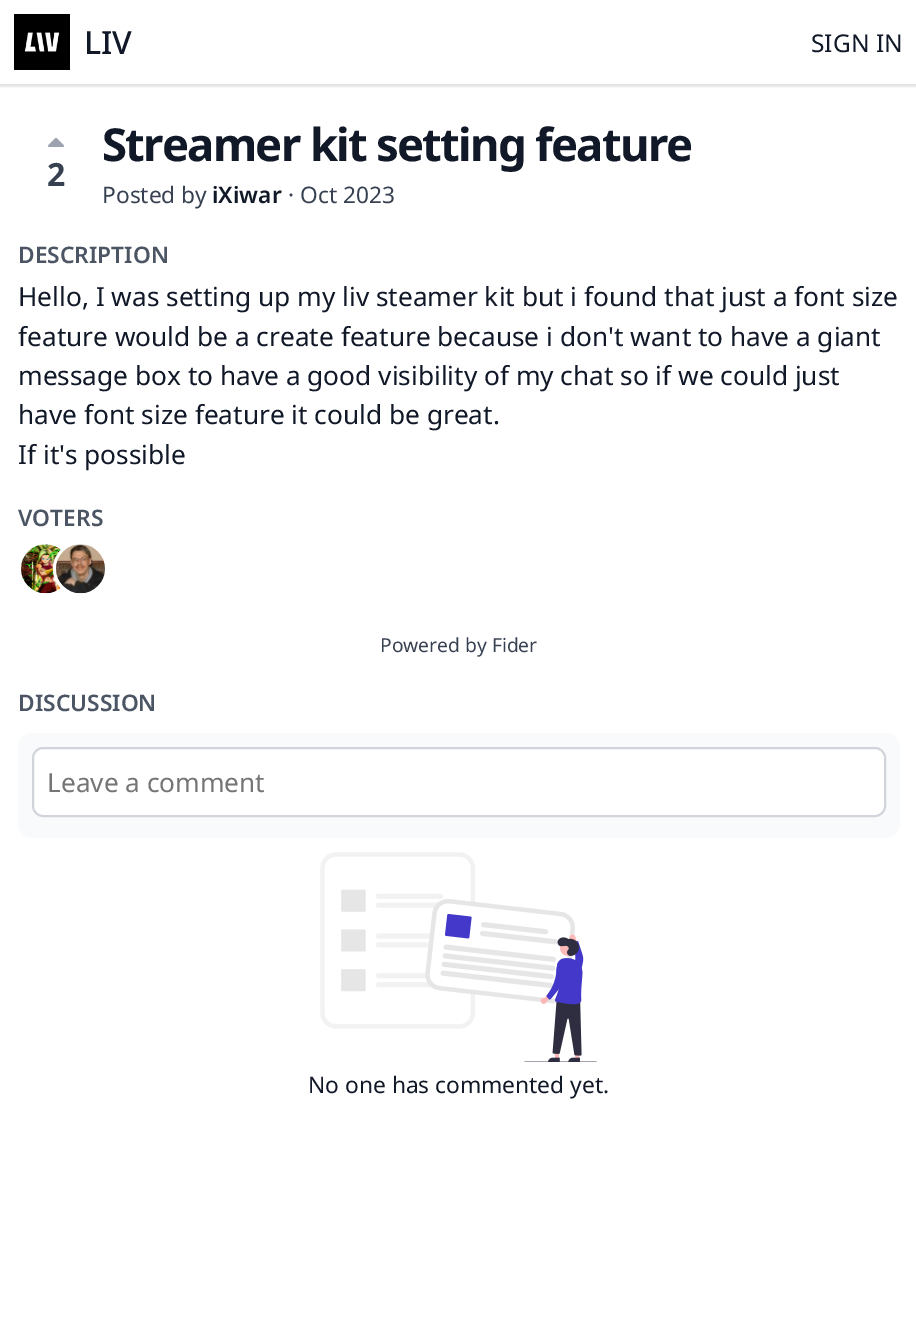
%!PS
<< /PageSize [916 1344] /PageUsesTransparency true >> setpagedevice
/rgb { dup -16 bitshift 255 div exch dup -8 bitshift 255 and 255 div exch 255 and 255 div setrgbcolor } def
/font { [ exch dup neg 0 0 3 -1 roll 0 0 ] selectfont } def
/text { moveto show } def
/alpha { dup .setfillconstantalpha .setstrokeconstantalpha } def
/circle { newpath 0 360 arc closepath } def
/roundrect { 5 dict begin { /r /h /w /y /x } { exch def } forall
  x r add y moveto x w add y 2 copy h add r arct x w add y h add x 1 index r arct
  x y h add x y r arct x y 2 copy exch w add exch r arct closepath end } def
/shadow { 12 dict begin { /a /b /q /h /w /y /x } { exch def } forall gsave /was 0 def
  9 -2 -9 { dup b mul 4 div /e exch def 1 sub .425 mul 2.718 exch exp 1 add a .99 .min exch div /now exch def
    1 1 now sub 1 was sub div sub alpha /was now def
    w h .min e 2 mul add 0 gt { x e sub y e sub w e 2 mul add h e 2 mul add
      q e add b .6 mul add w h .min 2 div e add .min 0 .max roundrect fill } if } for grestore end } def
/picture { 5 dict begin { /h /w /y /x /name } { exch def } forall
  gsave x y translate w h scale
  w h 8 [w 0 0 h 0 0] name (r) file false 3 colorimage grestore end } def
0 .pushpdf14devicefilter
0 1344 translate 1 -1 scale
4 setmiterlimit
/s1 { /NotoSans-Medium 32 font 16#111827 rgb } def
/s2 { /NotoSans-Regular 24.5 font 16#111827 rgb } def
/s3 { /NotoSans-Bold 32 font 16#374151 rgb } def
/s4 { /NotoSans-Regular 22.75 font 16#374151 rgb } def
/s5 { /NotoSans-SemiBold 22.75 font 16#111827 rgb } def
/s6 { /NotoSans-SemiBold 22.75 font 16#4B5563 rgb } def
/s7 { /NotoSans-Regular 26.25 font 16#111827 rgb } def
/s8 { /NotoSans-Regular 19.25 font 16#374151 rgb } def
/s9 { /NotoSans-Regular 26.25 font 16#757575 rgb } def
/s10 { /NotoSans-Regular 22.75 font 16#111827 rgb } def
16#FFFFFF rgb
0 0 916 1344 rectfill
gsave
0 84 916 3 rectclip
16#000000 rgb
0 2 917 84 0 2 0.06 shadow
grestore
gsave
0 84 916 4 rectclip
16#000000 rgb
0 2 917 84 0 2.5 0.1 shadow
grestore
(pic1.raw) 14 14 56 56 picture
s1
(LIV) 84 54 text
s2
(SIGN IN) 811 52 text
(pic2.raw) 47 137 17 10 picture
s3
(2) 47 186 text
/NotoSans-Bold 45.5 font
16#111827 rgb
102 161 moveto -1.75 0 (Streamer kit setting feature) ashow
s4
(Posted by) 102 203 text
s5
(iXiwar) 212 203 text
s4
(· Oct 2023) 288 203 text
s6
(DESCRIPTION) 18 263 text
s7
(Hello, I was setting up my liv steamer kit but i found that just a font size) 18 306 text
(feature would be a create feature because i don't want to have a giant) 18 346 text
(message box to have a good visibility of my chat so if we could just) 18 385 text
(have font size feature it could be great.) 18 424 text
(If it's possible) 18 464 text
s6
(VOTERS) 18 526 text
(pic3.raw) 21 544 43 50 picture
16#FFFFFF rgb
4 setlinewidth
81 569 26 circle stroke
(pic4.raw) 56 544 49 50 picture
s8
(Powered by Fider) 380 652 text
s6
(DISCUSSION) 18 711 text
16#F9FAFB rgb
18 733 882 105 14 roundrect fill
16#FFFFFF rgb
33 748 852 68 10 roundrect gsave fill grestore
16#D1D5DB rgb
2 setlinewidth
stroke
s9
(Leave a comment) 47 792 text
(pic5.raw) 320 852 277 210 picture
s10
(No one has commented yet.) 308 1093 text
.poppdf14devicefilter showpage
